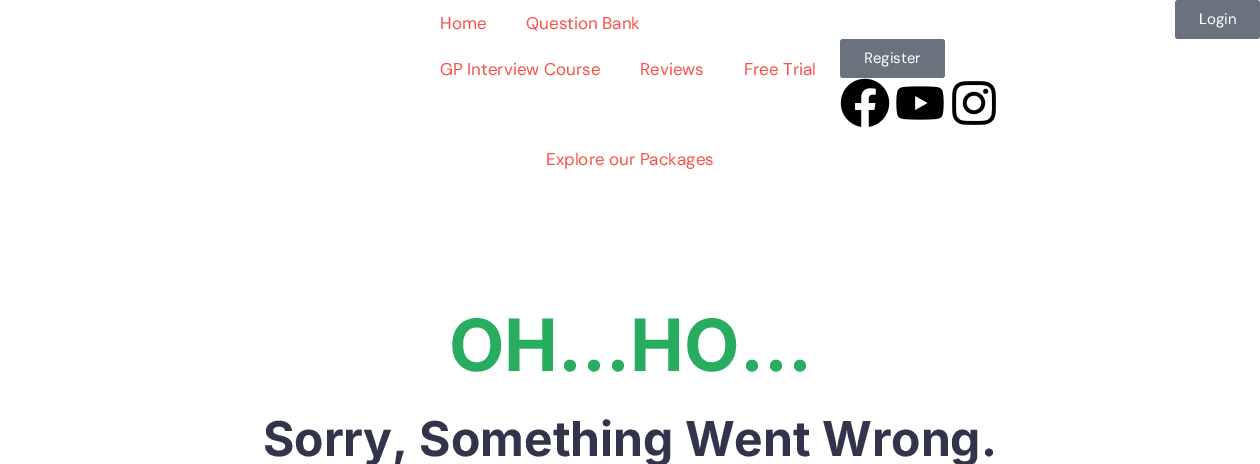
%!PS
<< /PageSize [1260 464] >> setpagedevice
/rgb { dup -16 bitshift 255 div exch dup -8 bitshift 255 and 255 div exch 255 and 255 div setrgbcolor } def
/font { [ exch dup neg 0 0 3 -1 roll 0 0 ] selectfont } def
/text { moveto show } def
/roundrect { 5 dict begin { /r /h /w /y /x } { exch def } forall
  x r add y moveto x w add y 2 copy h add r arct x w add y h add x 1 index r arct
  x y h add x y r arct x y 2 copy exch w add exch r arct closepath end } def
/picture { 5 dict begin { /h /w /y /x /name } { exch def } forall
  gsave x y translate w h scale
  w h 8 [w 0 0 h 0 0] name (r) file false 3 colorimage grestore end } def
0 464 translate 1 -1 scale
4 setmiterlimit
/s1 { /DMSans-Regular 17 font 16#FC5046 rgb } def
/s2 { /DMSans-Regular 15 font 16#FFFFFF rgb } def
/s3 { /Inter-Bold 72 font 16#28AD60 rgb } def
/s4 { /Inter-Bold 48 font 16#32344B rgb } def
16#FFFFFF rgb
0 0 1260 464 rectfill
s1
(Home) 440 29 text
(Question Bank) 526 29 text
(GP Interview Course) 440 75 text
(Reviews) 640 75 text
(Free Trial) 744 75 text
16#69727D rgb
1175 0 85 39 3 roundrect fill
s2
(Login) 1199 24 text
16#69727D rgb
840 39 105 39 3 roundrect fill
s2
(Register) 864 63 text
(pic1.raw) 840 78 50 49 picture
(pic2.raw) 896 86 48 34 picture
(pic3.raw) 952 81 44 44 picture
s1
(Explore our Packages) 546 165 text
s3
(OH...HO...) 449 371 text
s4
(Sorry, Something Went Wrong.) 263 456 text
showpage
